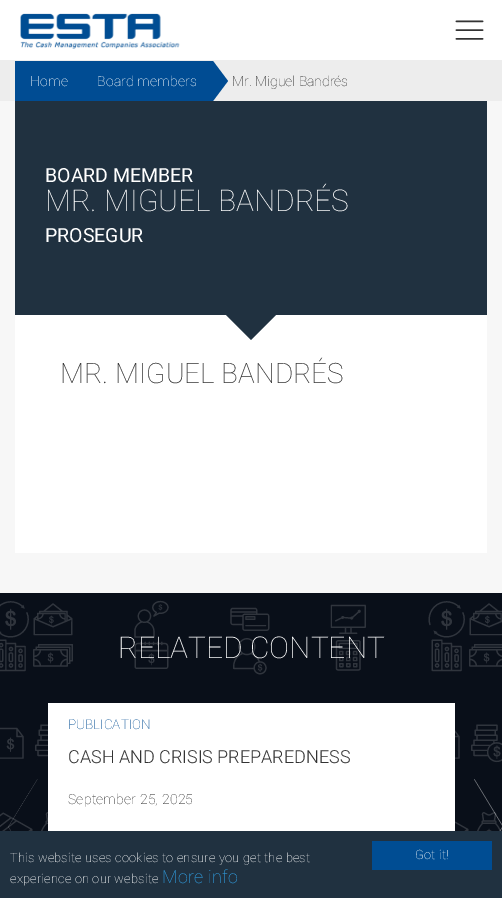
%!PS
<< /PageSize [502 898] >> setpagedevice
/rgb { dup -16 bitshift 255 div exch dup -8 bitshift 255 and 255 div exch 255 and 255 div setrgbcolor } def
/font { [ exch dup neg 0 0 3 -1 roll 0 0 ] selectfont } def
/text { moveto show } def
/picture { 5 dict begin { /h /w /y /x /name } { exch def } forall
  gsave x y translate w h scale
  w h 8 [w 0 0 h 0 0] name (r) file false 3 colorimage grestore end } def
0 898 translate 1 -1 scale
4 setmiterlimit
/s1 { /Roboto-Thin 14 font 16#333333 rgb } def
/s2 { /Roboto-Regular 19.5 font 16#FFFFFF rgb } def
/s3 { /Roboto-Thin 30 font 16#FFFFFF rgb } def
/s4 { /Roboto-Thin 28 font 16#333333 rgb } def
/s5 { /Roboto-Thin 13.5 font 16#004D93 rgb } def
/s6 { /Roboto-Light 18 font 16#333333 rgb } def
16#F7F7F7 rgb
0 0 502 898 rectfill
16#FFFFFF rgb
0 0 502 60 rectfill
(pic1.raw) 20 13 160 36 picture
(pic2.raw) 455 20 29 20 picture
16#EDEDED rgb
0 60 502 41 rectfill
16#004C93 rgb
15 61 198 40 rectfill
/Roboto-Thin 14 font
16#FFFFFF rgb
30 86 moveto 0.2 0 (Home) ashow
97 86 moveto 0.2 0 (Board members) ashow
16#004C93 rgb
213 101 moveto 213 61 lineto 228 81 lineto closepath fill
s1
(Mr. Miguel Bandrés) 232 86 text
16#FFFFFF rgb
15 315 472 238 rectfill
16#203140 rgb
15 101 472 214 rectfill
s2
(BOARD MEMBER) 45 182 text
s3
(MR. MIGUEL BANDRÉS) 45 211 text
s2
(PROSEGUR) 45 242 text
16#203140 rgb
226 315 moveto 276 315 lineto 251 340 lineto closepath fill
s4
(MR. MIGUEL BANDRÉS) 60 383 text
16#090F19 rgb
0 593 502 238 rectfill
(pic3.raw) 0 600 502 231 picture
s3
(RELATED CONTENT) 118 658 text
(pic4.raw) 8 779 30 52 picture
48 703 407 128 rectfill
s5
(PUBLICATION) 68 729 text
s6
(CASH AND CRISIS PREPAREDNESS) 68 763 text
/Roboto-Thin 14 font
68 804 moveto 0.2 0 (September 25, 2025) ashow
(pic5.raw) 474 779 28 52 picture
16#203140 rgb
0 831 502 67 rectfill
/Roboto-Thin 12.8 font
16#FFFFFF rgb
10 862 moveto 0.2 0 (This website uses cookies to ensure you get the best) ashow
10 883 moveto 0.2 0 (experience on our website) ashow
/Roboto-Thin 18 font
16#31A8F0 rgb
162 883 moveto 0.2 0 (More info) ashow
16#004D93 rgb
372 841 120 29 rectfill
/Roboto-Thin 12.8 font
16#FFFFFF rgb
415 859 moveto 0.2 0 (Got it!) ashow
showpage
